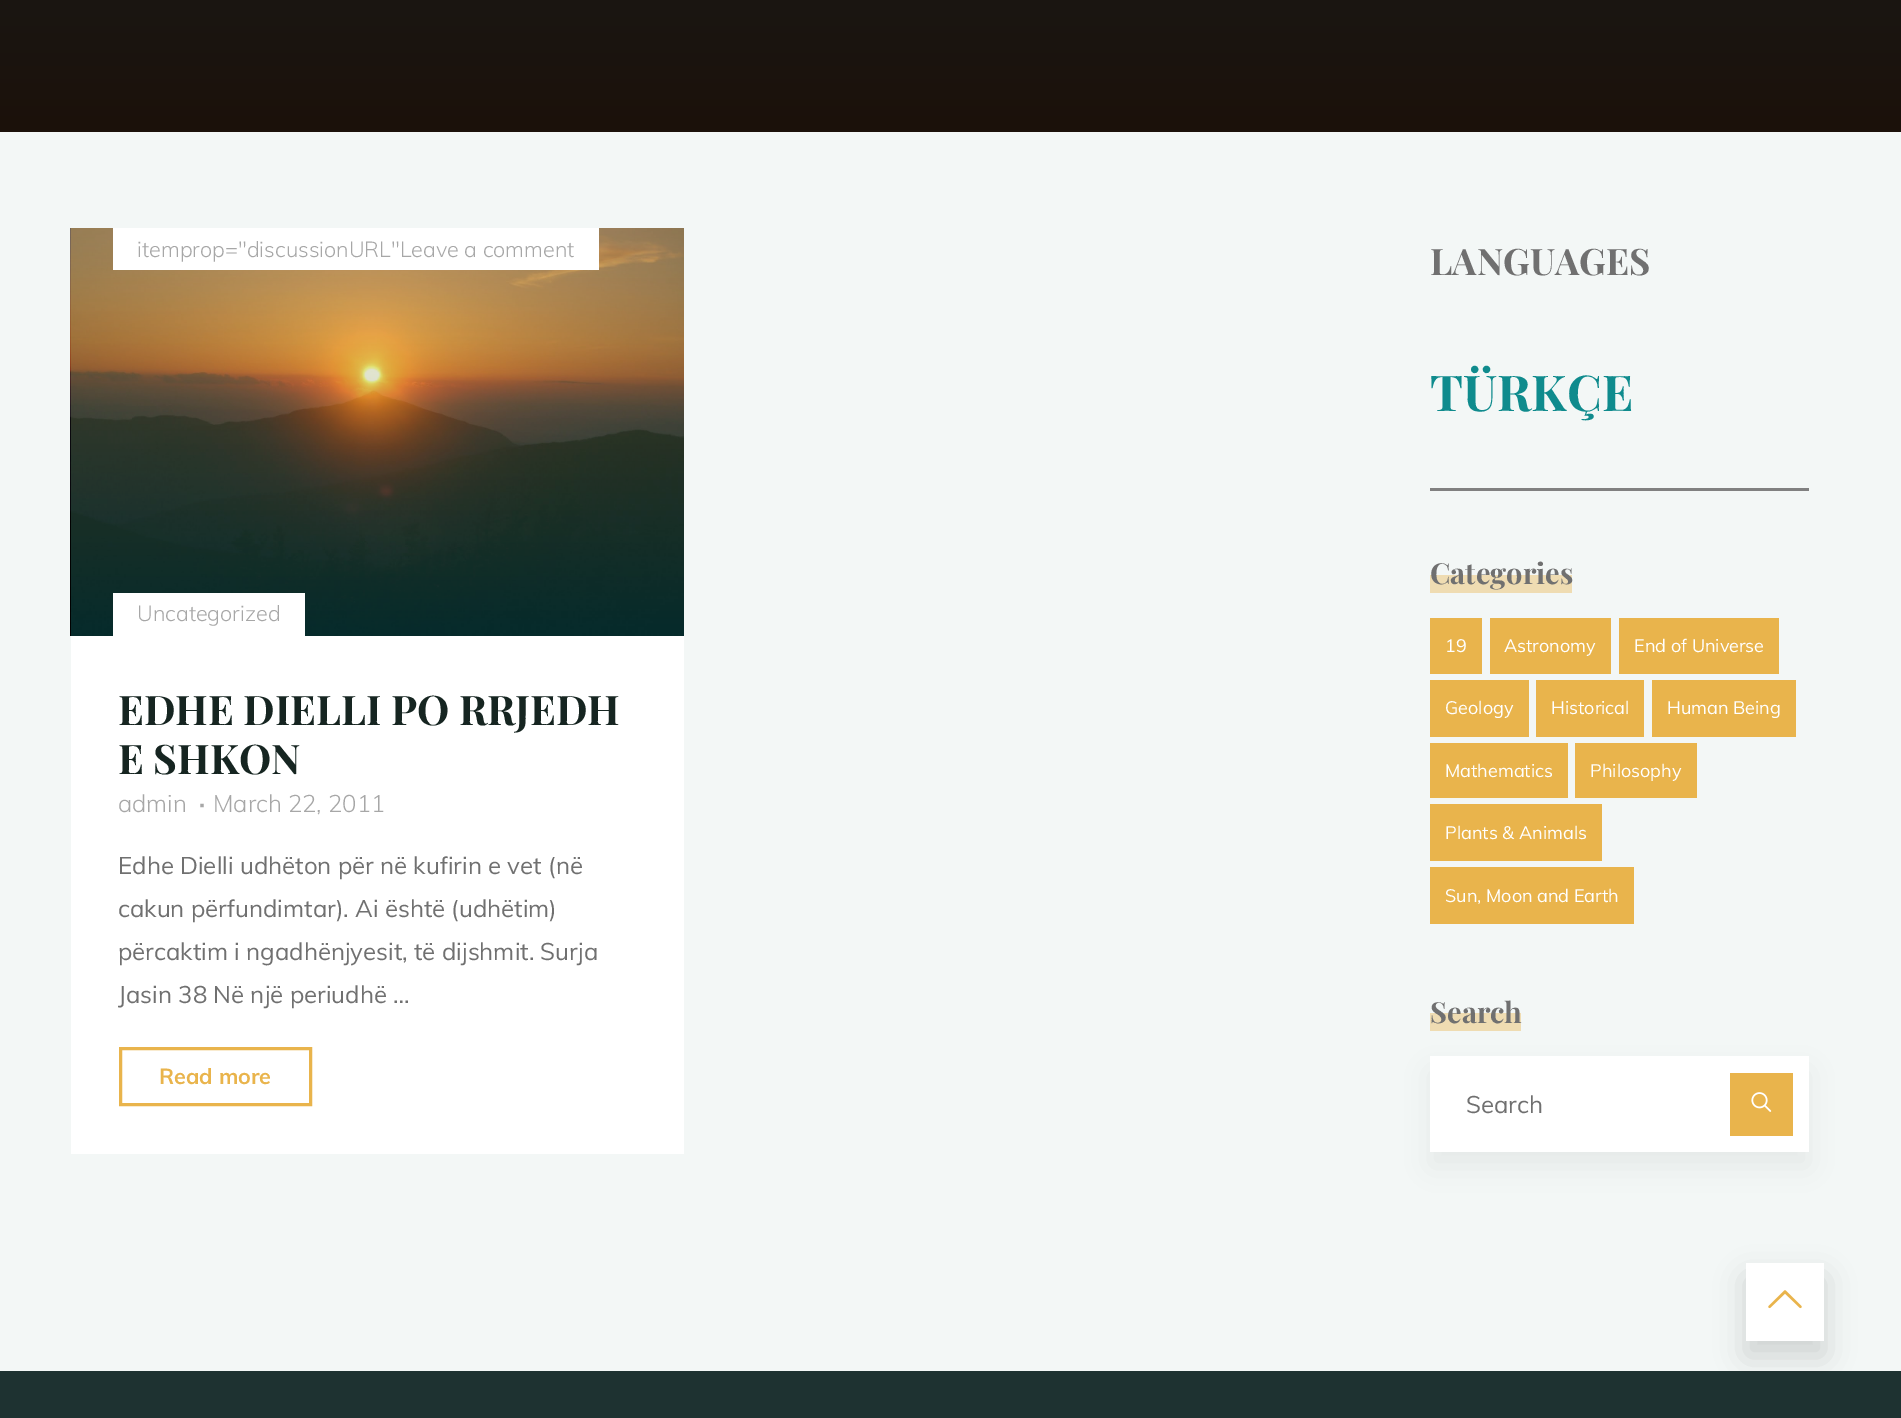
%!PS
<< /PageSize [1901 1418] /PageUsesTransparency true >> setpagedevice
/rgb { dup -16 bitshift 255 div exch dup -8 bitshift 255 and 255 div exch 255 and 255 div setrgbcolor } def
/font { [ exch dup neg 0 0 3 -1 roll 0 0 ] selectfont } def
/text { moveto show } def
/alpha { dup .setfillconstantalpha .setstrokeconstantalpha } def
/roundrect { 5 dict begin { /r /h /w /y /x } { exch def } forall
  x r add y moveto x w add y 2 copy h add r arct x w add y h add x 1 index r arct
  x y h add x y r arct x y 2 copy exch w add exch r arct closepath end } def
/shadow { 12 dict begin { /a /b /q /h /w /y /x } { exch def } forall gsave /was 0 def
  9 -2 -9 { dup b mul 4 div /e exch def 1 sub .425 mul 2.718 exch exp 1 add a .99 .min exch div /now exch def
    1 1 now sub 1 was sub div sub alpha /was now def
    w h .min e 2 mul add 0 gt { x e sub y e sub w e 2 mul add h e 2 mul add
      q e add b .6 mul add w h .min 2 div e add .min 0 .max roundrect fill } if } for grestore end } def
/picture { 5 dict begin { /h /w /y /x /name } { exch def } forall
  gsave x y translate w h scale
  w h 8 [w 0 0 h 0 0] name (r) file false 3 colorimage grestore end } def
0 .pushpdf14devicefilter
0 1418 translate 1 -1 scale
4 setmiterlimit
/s1 { /Muli-Light 21.6 font 16#A7A7A7 rgb } def
/s2 { /PlayfairDisplay-Bold 40.75 font 16#162521 rgb } def
/s3 { /Muli-Light 24 font 16#A7A7A7 rgb } def
/s4 { /Muli-Bold 24 font 16#A7A7A7 rgb } def
/s5 { /Muli-Regular 24 font 16#707070 rgb } def
/s6 { /Muli-Bold 21.6 font 16#E9B44C rgb } def
/s7 { /PlayfairDisplay-Bold 36.5 font 16#707070 rgb } def
/s8 { /PlayfairDisplay-Bold 49.5 font 16#0F8B8D rgb } def
/s9 { /PlayfairDisplay-Bold 29 font 16#707070 rgb } def
/s10 { /Muli-Regular 18 font 16#FFFFFF rgb } def
16#F3F7F6 rgb
0 0 1901 1418 rectfill
gsave 0 0 moveto 1901 0 lineto 1901 132 lineto 0 132 lineto closepath clip newpath
<< /ShadingType 2 /ColorSpace /DeviceRGB /Coords [951 -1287 951 132] /Extend [true true] /Function << /FunctionType 2 /Domain [0 1] /C0 [0.031 0.255 0.361] /C1 [0.11 0.067 0.039] /N 1 >> >> shfill grestore
16#FFFFFF rgb
71 636 613 518 rectfill
(pic1.raw) 70 228 614 408 picture
113 228 486 42 rectfill
s1
(itemprop="discussionURL"Leave a comment) 137 257 text
16#FFFFFF rgb
113 593 192 43 rectfill
s1
(Uncategorized) 137 621 text
s2
(EDHE DIELLI PO RRJEDH) 118 725 text
(E SHKON) 118 774 text
s3
(admin) 118 812 text
s4
(·) 199 812 text
s3
(March 22, 2011) 213 812 text
s5
(Edhe Dielli udhëton për në kufirin e vet \(në) 118 874 text
(cakun përfundimtar\). Ai është \(udhëtim\)) 118 917 text
(përcaktim i ngadhënjyesit, të dijshmit. Surja) 118 960 text
(Jasin 38 Në një periudhë …) 118 1003 text
16#E9B44C rgb
3 setlinewidth
120.5 1048.5 190 56 rectstroke
s6
(Read more) 159 1084 text
s7
(LANGUAGES) 1430 275 text
s8
(TÜRKÇE) 1430 411 text
16#808080 rgb
1430 488 379 3 rectfill
16#EFDCB2 rgb
1430 575 142 18 rectfill
s9
(Categories) 1430 584 text
16#E9B44C rgb
1430 618 52 56 rectfill
s10
(19) 1445 652 text
16#E9B44C rgb
1490 618 121 56 rectfill
s10
(Astronomy) 1504 652 text
16#E9B44C rgb
1619 618 160 56 rectfill
s10
(End of Universe) 1634 652 text
16#E9B44C rgb
1430 680 99 57 rectfill
s10
(Geology) 1445 714 text
16#E9B44C rgb
1536 680 108 57 rectfill
s10
(Historical) 1551 714 text
16#E9B44C rgb
1652 680 144 57 rectfill
s10
(Human Being) 1667 714 text
16#E9B44C rgb
1430 743 138 55 rectfill
s10
(Mathematics) 1445 777 text
16#E9B44C rgb
1575 743 122 55 rectfill
s10
(Philosophy) 1590 777 text
16#E9B44C rgb
1430 804 172 57 rectfill
s10
(Plants & Animals) 1445 839 text
16#E9B44C rgb
1430 867 204 57 rectfill
s10
(Sun, Moon and Earth) 1445 902 text
16#EFDCB2 rgb
1430 1013 91 18 rectfill
s9
(Search) 1430 1023 text
16#000000 rgb
1430 1071 379 96 0 15 0.05 shadow
16#FFFFFF rgb
1430 1056 379 96 rectfill
s5
(Search) 1466 1113 text
16#E9B44C rgb
1730 1073 63 63 rectfill
(pic2.raw) 1751 1092 21 20 picture
16#1E3231 rgb
0 1371 1901 47 rectfill
16#000000 rgb
1746 1278 78 78 0 15 0.15 shadow
16#FFFFFF rgb
1746 1263 78 78 rectfill
(pic3.raw) 1768 1290 34 19 picture
.poppdf14devicefilter showpage
